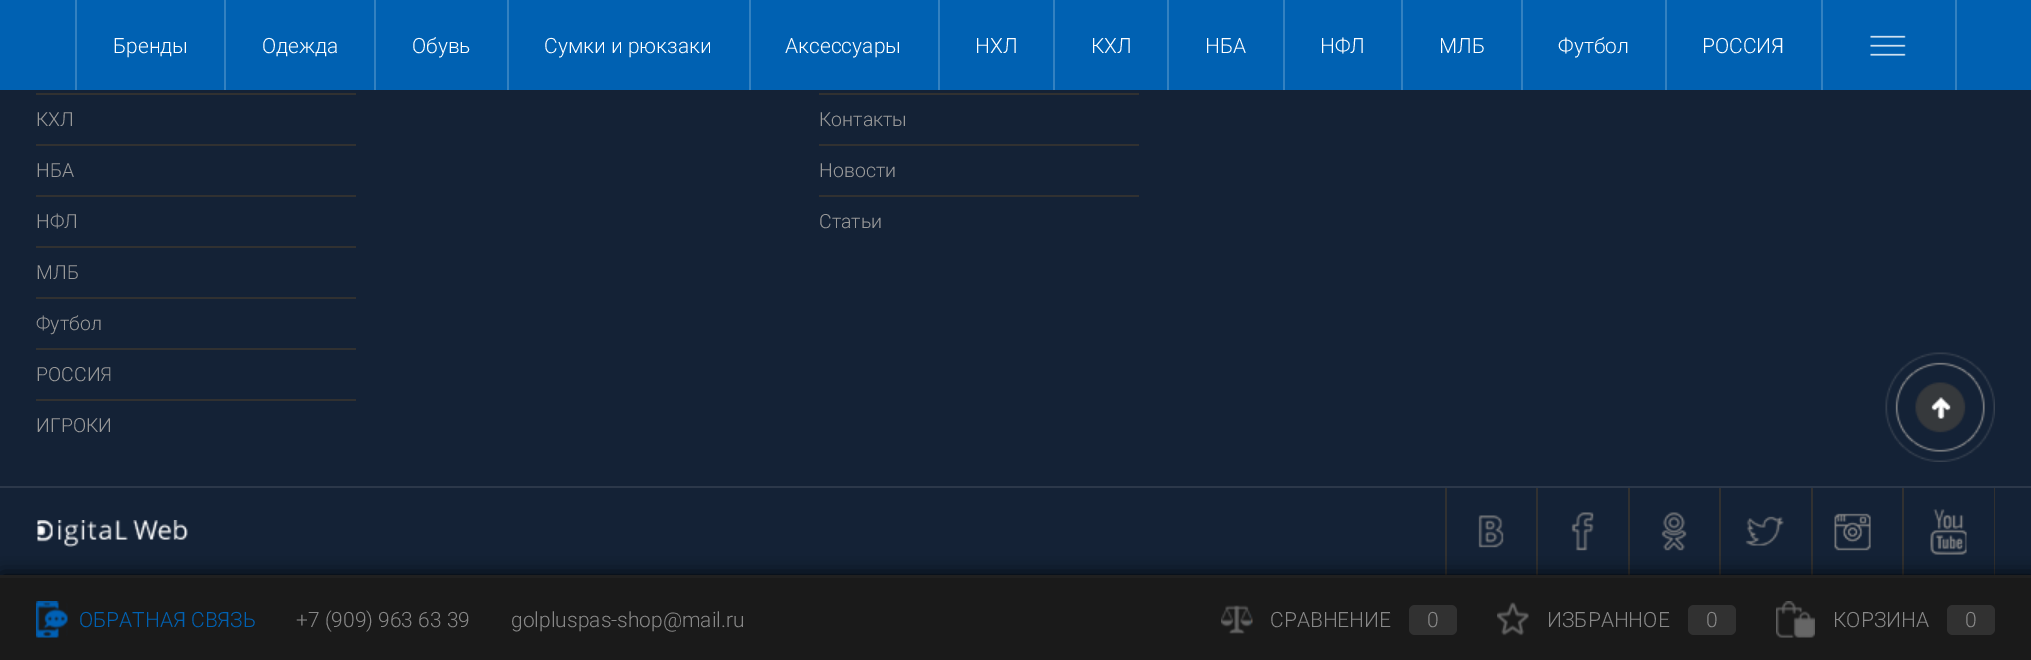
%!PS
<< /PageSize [2031 660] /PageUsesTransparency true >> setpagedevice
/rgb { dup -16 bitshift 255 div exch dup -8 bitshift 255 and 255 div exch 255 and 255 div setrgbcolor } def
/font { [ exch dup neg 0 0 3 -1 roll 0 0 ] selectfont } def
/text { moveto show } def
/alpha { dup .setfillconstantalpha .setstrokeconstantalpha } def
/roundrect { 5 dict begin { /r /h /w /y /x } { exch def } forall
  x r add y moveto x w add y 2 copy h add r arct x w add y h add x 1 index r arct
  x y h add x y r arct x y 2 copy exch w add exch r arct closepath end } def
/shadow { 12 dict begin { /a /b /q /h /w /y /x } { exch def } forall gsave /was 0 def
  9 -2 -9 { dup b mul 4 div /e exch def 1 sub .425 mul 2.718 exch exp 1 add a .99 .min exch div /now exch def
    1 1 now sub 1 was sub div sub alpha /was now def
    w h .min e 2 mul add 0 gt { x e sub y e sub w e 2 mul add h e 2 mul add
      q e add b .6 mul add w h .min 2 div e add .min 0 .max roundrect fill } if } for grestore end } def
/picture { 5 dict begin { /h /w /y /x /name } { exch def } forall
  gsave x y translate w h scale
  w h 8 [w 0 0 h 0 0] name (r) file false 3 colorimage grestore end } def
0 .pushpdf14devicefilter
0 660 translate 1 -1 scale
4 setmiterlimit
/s1 { /Roboto-Light 21 font 16#FFFFFF rgb } def
/s2 { /Roboto-Light 19.5 font 16#999999 rgb } def
/s3 { /Roboto-Light 21 font 16#0061B2 rgb } def
/s4 { /Roboto-Light 21 font 16#888888 rgb } def
16#142236 rgb
0 0 2031 660 rectfill
16#0061B2 rgb
0 0 2031 90 rectfill
16#3381C1 rgb
224 0 2 90 rectfill
75 0 2 90 rectfill
s1
(Бренды) 113 53 text
16#3381C1 rgb
374 0 2 90 rectfill
s1
(Одежда) 262 53 text
16#3381C1 rgb
507 0 2 90 rectfill
s1
(Обувь) 412 53 text
16#3381C1 rgb
749 0 2 90 rectfill
s1
(Сумки и рюкзаки) 544 53 text
16#3381C1 rgb
938 0 2 90 rectfill
s1
(Аксессуары) 785 53 text
16#3381C1 rgb
1053 0 2 90 rectfill
s1
(НХЛ) 975 53 text
16#3381C1 rgb
1167 0 2 90 rectfill
s1
(КХЛ) 1091 53 text
16#3381C1 rgb
1283 0 2 90 rectfill
s1
(НБА) 1205 53 text
16#3381C1 rgb
1401 0 2 90 rectfill
s1
(НФЛ) 1320 53 text
16#3381C1 rgb
1521 0 2 90 rectfill
s1
(МЛБ) 1439 53 text
16#3381C1 rgb
1665 0 2 90 rectfill
s1
(Футбол) 1558 53 text
16#3381C1 rgb
1821 0 2 90 rectfill
s1
(РОССИЯ) 1702 53 text
16#3381C1 rgb
1955 0 2 90 rectfill
(pic1.raw) 1870 35 36 21 picture
16#313131 rgb
36 93 320 2 rectfill
s2
(КХЛ) 36 126 text
16#313131 rgb
36 144 320 2 rectfill
s2
(НБА) 36 177 text
16#313131 rgb
36 195 320 2 rectfill
s2
(НФЛ) 36 228 text
16#313131 rgb
36 246 320 2 rectfill
s2
(МЛБ) 36 279 text
16#313131 rgb
36 297 320 2 rectfill
s2
(Футбол) 36 330 text
16#313131 rgb
36 348 320 2 rectfill
s2
(РОССИЯ) 36 381 text
16#313131 rgb
36 399 320 2 rectfill
s2
(ИГРОКИ) 36 432 text
16#313131 rgb
819 93 320 2 rectfill
s2
(Контакты) 819 126 text
16#313131 rgb
819 144 320 2 rectfill
s2
(Новости) 819 177 text
16#313131 rgb
819 195 320 2 rectfill
s2
(Статьи) 819 228 text
16#2C384A rgb
0 486 2031 2 rectfill
(pic2.raw) 37 520 151 27 picture
16#313131 rgb
1536 488 2 90 rectfill
1445 488 2 90 rectfill
(pic3.raw) 1478 515 26 33 picture
1628 488 2 90 rectfill
(pic4.raw) 1571 512 23 39 picture
1719 488 2 90 rectfill
(pic5.raw) 1661 512 26 39 picture
1811 488 2 90 rectfill
(pic6.raw) 1745 516 39 30 picture
1902 488 2 90 rectfill
(pic7.raw) 1834 513 37 38 picture
1994 488 1 90 rectfill
(pic8.raw) 1930 509 37 46 picture
16#000000 rgb
2 576 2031 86 0 9 1 shadow
16#1A1A1A rgb
0 578 2031 82 rectfill
16#202020 rgb
0 575 2031 3 rectfill
(pic9.raw) 36 601 32 37 picture
s3
(ОБРАТНАЯ СВЯЗЬ) 79 627 text
s4
(+7 \(909\) 963 63 39) 296 627 text
(golpluspas-shop@mail.ru) 511 627 text
(pic10.raw) 1221 605 32 29 picture
(СРАВНЕНИЕ) 1270 627 text
16#313131 rgb
1409 605 48 30 6 roundrect fill
s4
(0) 1427 627 text
(pic11.raw) 1497 602 32 34 picture
(ИЗБРАННОЕ) 1547 627 text
16#313131 rgb
1688 605 48 30 6 roundrect fill
s4
(0) 1706 627 text
(pic12.raw) 1776 601 39 37 picture
(КОРЗИНА) 1833 627 text
16#313131 rgb
1947 605 48 30 6 roundrect fill
s4
(0) 1965 627 text
(pic13.raw) 1885 352 110 110 picture
.poppdf14devicefilter showpage
